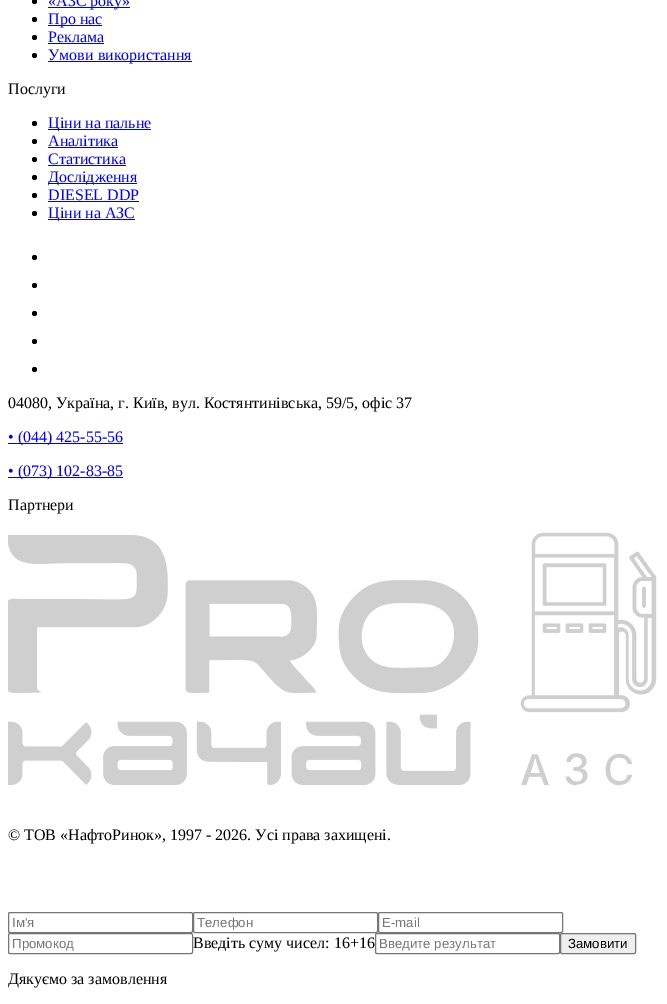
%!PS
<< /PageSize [667 1004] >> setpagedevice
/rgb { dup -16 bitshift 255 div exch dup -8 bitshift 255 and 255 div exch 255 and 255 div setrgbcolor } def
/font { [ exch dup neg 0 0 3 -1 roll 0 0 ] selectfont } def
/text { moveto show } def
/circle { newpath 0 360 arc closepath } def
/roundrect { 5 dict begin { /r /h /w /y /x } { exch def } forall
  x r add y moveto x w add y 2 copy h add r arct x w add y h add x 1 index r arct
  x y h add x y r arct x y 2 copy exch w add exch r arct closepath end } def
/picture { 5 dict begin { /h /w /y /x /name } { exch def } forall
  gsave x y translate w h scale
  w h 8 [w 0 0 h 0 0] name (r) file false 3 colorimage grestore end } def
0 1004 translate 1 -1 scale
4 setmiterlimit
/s1 { /LiberationSerif-Regular 16 font 16#0000EE rgb } def
/s2 { /LiberationSerif-Regular 16 font 16#000000 rgb } def
/s3 { /LiberationSans-Regular 13.25 font 16#757575 rgb } def
/s4 { /LiberationSans-Regular 13.25 font 16#000000 rgb } def
16#FFFFFF rgb
0 0 667 1004 rectfill
16#000000 rgb
34.5 1.5 2.5 circle fill
16#0000EE rgb
48 7 82 1 rectfill
s1
(«АЗС року») 48 6 text
16#000000 rgb
34.5 19.5 2.5 circle fill
16#0000EE rgb
48 25 54 1 rectfill
(Про нас) 48 24 text
16#000000 rgb
34.5 37.5 2.5 circle fill
s1
(Реклама) 48 42 text
48 43 56 1 rectfill
16#000000 rgb
34.5 55.5 2.5 circle fill
16#0000EE rgb
48 61 144 1 rectfill
(Умови використання) 48 60 text
s2
(Послуги) 8 94 text
34.5 123.5 2.5 circle fill
16#0000EE rgb
48 129 103 1 rectfill
(Ціни на пальне) 48 128 text
16#000000 rgb
34.5 141.5 2.5 circle fill
s1
(Аналітика) 48 146 text
48 147 70 1 rectfill
16#000000 rgb
34.5 159.5 2.5 circle fill
s1
(Статистика) 48 164 text
48 165 78 1 rectfill
16#000000 rgb
34.5 177.5 2.5 circle fill
16#0000EE rgb
48 183 89 1 rectfill
(Дослідження) 48 182 text
16#000000 rgb
34.5 195.5 2.5 circle fill
s1
(DIESEL DDP) 48 200 text
48 201 91 1 rectfill
16#000000 rgb
34.5 213.5 2.5 circle fill
16#0000EE rgb
48 219 87 1 rectfill
(Ціни на АЗС) 48 218 text
16#000000 rgb
34.5 257.5 2.5 circle fill
34.5 285.5 2.5 circle fill
34.5 313.5 2.5 circle fill
34.5 341.5 2.5 circle fill
34.5 369.5 2.5 circle fill
(04080, Україна, г. Київ, вул. Костянтинівська, 59/5, офіс 37) 8 408 text
16#0000EE rgb
8 443 115 1 rectfill
(• \(044\) 425-55-56) 8 442 text
8 477 115 1 rectfill
(• \(073\) 102-83-85) 8 476 text
s2
(Партнери) 8 510 text
(pic1.raw) 8 532 649 254 picture
(© ТОВ «НафтоРинок», 1997 - 2026. Усі права захищені.) 8 840 text
16#767676 rgb
8.5 912.5 184 20 1.5 roundrect stroke
s3
(Ім'я) 12 927 text
16#767676 rgb
193.5 912.5 184 20 1.5 roundrect stroke
s3
(Телефон) 197 927 text
16#767676 rgb
378.5 912.5 184 20 1.5 roundrect stroke
s3
(E-mail) 382 927 text
16#767676 rgb
8.5 933.5 184 20 1.5 roundrect stroke
s3
(Промокод) 12 948 text
s2
(Введіть суму чисел: 16+16) 193 948 text
16#767676 rgb
375.5 933.5 184 20 1.5 roundrect stroke
s3
(Введите результат) 379 948 text
16#EFEFEF rgb
560.5 933.5 75 20 1.5 roundrect gsave fill grestore
16#767676 rgb
stroke
s4
(Замовити) 568 948 text
s2
(Дякуємо за замовлення) 8 984 text
showpage
